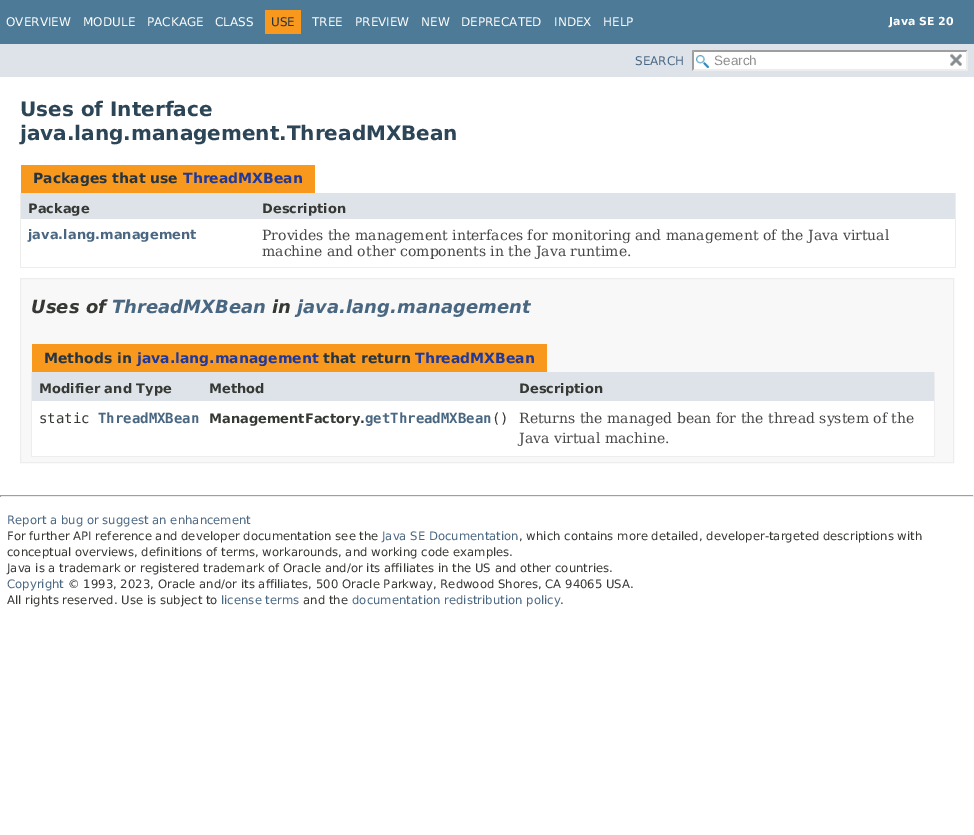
%!PS
<< /PageSize [974 835] >> setpagedevice
/rgb { dup -16 bitshift 255 div exch dup -8 bitshift 255 and 255 div exch 255 and 255 div setrgbcolor } def
/font { [ exch dup neg 0 0 3 -1 roll 0 0 ] selectfont } def
/text { moveto show } def
/picture { 5 dict begin { /h /w /y /x /name } { exch def } forall
  gsave x y translate w h scale
  w h 8 [w 0 0 h 0 0] name (r) file false 3 colorimage grestore end } def
0 835 translate 1 -1 scale
4 setmiterlimit
/s1 { /DejaVuSans-Regular 12 font 16#FFFFFF rgb } def
/s2 { /DejaVuSans-Regular 12 font 16#253441 rgb } def
/s3 { /DejaVuSans-Bold 11 font 16#FFFFFF rgb } def
/s4 { /DejaVuSans-Regular 12 font 16#4A6782 rgb } def
/s5 { /LiberationSans-Regular 13.5 font 16#909090 rgb } def
/s6 { /DejaVuSans-Bold 20 font 16#2C4557 rgb } def
/s7 { /DejaVuSans-Bold 14 font 16#253441 rgb } def
/s8 { /DejaVuSans-Bold 14 font 16#1F389C rgb } def
/s9 { /DejaVuSans-Bold 13 font 16#353833 rgb } def
/s10 { /DejaVuSans-Bold 13 font 16#4A6782 rgb } def
/s11 { /DejaVuSerif-Regular 14 font 16#474747 rgb } def
/s12 { /DejaVuSans-BoldItalic 18 font 16#353833 rgb } def
/s13 { /DejaVuSans-BoldItalic 18 font 16#4A6782 rgb } def
/s14 { /DejaVuSansMono-Regular 14 font 16#353833 rgb } def
/s15 { /DejaVuSansMono-Bold 14 font 16#4A6782 rgb } def
/s16 { /DejaVuSans-Regular 11.67 font 16#4A6782 rgb } def
/s17 { /DejaVuSans-Regular 11.67 font 16#353833 rgb } def
16#FFFFFF rgb
0 0 974 835 rectfill
16#4D7A97 rgb
0 0 974 44 rectfill
s1
(OVERVIEW) 6 26 text
(MODULE) 83 26 text
(PACKAGE) 147 26 text
(CLASS) 215 26 text
16#F8981D rgb
265 10 36 24 rectfill
s2
(USE) 271 26 text
s1
(TREE) 312 26 text
(PREVIEW) 355 26 text
(NEW) 421 26 text
(DEPRECATED) 461 26 text
(INDEX) 554 26 text
(HELP) 603 26 text
s3
(Java SE 20) 889 25 text
16#DEE3E9 rgb
0 44 974 33 rectfill
s4
(SEARCH) 635 65 text
16#FFFFFF rgb
692 50 276 21 rectfill
(pic1.raw) 696 55 13 13 picture
16#9E9E9E rgb
692 50 moveto 968 50 lineto 966 52 lineto 694 52 lineto closepath fill
16#EDEDED rgb
968 50 moveto 968 71 lineto 966 69 lineto 966 52 lineto closepath fill
968 71 moveto 692 71 lineto 694 69 lineto 966 69 lineto closepath fill
16#9E9E9E rgb
692 71 moveto 692 50 lineto 694 52 lineto 694 69 lineto closepath fill
s5
(Search) 714 65 text
(pic2.raw) 950 53 12 13 picture
s6
(Uses of Interface) 20 116 text
(java.lang.management.ThreadMXBean) 20 140 text
16#F8981D rgb
21 165 294 28 rectfill
s7
(Packages that use) 33 183 text
s8
(ThreadMXBean) 183 183 text
16#EDEDED rgb
955 193 1 75 rectfill
20 267 936 1 rectfill
20 193 1 75 rectfill
16#DEE3E9 rgb
21 193 934 26 rectfill
s9
(Package) 28 213 text
(Description) 262 213 text
s10
(java.lang.management) 28 239 text
s11
(Provides the management interfaces for monitoring and management of the Java virtual) 262 240 text
(machine and other components in the Java runtime.) 262 256 text
16#F8F8F8 rgb
20.5 278.5 moveto 953.5 278.5 lineto 953.5 462.5 lineto 20.5 462.5 lineto closepath gsave fill grestore
16#EDEDED rgb
stroke
s12
(Uses of) 31 313 text
s13
(ThreadMXBean) 112 313 text
s12
(in) 272 313 text
s13
(java.lang.management) 297 313 text
16#F8981D rgb
32 344 515 28 rectfill
s7
(Methods in) 44 363 text
s8
(java.lang.management) 137 363 text
s7
(that return) 323 363 text
s8
(ThreadMXBean) 415 363 text
16#EDEDED rgb
934 372 1 85 rectfill
31 456 904 1 rectfill
31 372 1 85 rectfill
16#DEE3E9 rgb
32 372 902 29 rectfill
s9
(Modifier and Type) 39 393 text
(Method) 209 393 text
(Description) 519 393 text
16#FFFFFF rgb
32 401 902 55 rectfill
s14
(static) 39 423 text
s15
(ThreadMXBean) 98 423 text
s9
(ManagementFactory.) 209 423 text
s15
(getThreadMXBean) 365 423 text
s14
(\(\)) 492 423 text
s11
(Returns the managed bean for the thread system of the) 519 423 text
(Java virtual machine.) 519 443 text
16#9F9F9F rgb
0 495 974 1 rectfill
16#EEEEEE rgb
973 495 1 2 rectfill
0 496 974 1 rectfill
16#9F9F9F rgb
0 495 1 2 rectfill
s16
(Report a bug or suggest an enhancement) 7 524 text
s17
(For further API reference and developer documentation see the) 7 540 text
s16
(Java SE Documentation) 382 540 text
s17
(, which contains more detailed, developer-targeted descriptions with) 519 540 text
(conceptual overviews, definitions of terms, workarounds, and working code examples.) 7 556 text
(Java is a trademark or registered trademark of Oracle and/or its affiliates in the US and other countries.) 7 572 text
s16
(Copyright) 7 588 text
s17
(© 1993, 2023, Oracle and/or its affiliates, 500 Oracle Parkway, Redwood Shores, CA 94065 USA.) 68 588 text
(All rights reserved. Use is subject to) 7 604 text
s16
(license terms) 221 604 text
s17
(and the) 303 604 text
s16
(documentation redistribution policy) 352 604 text
s17
(.) 560 604 text
showpage
